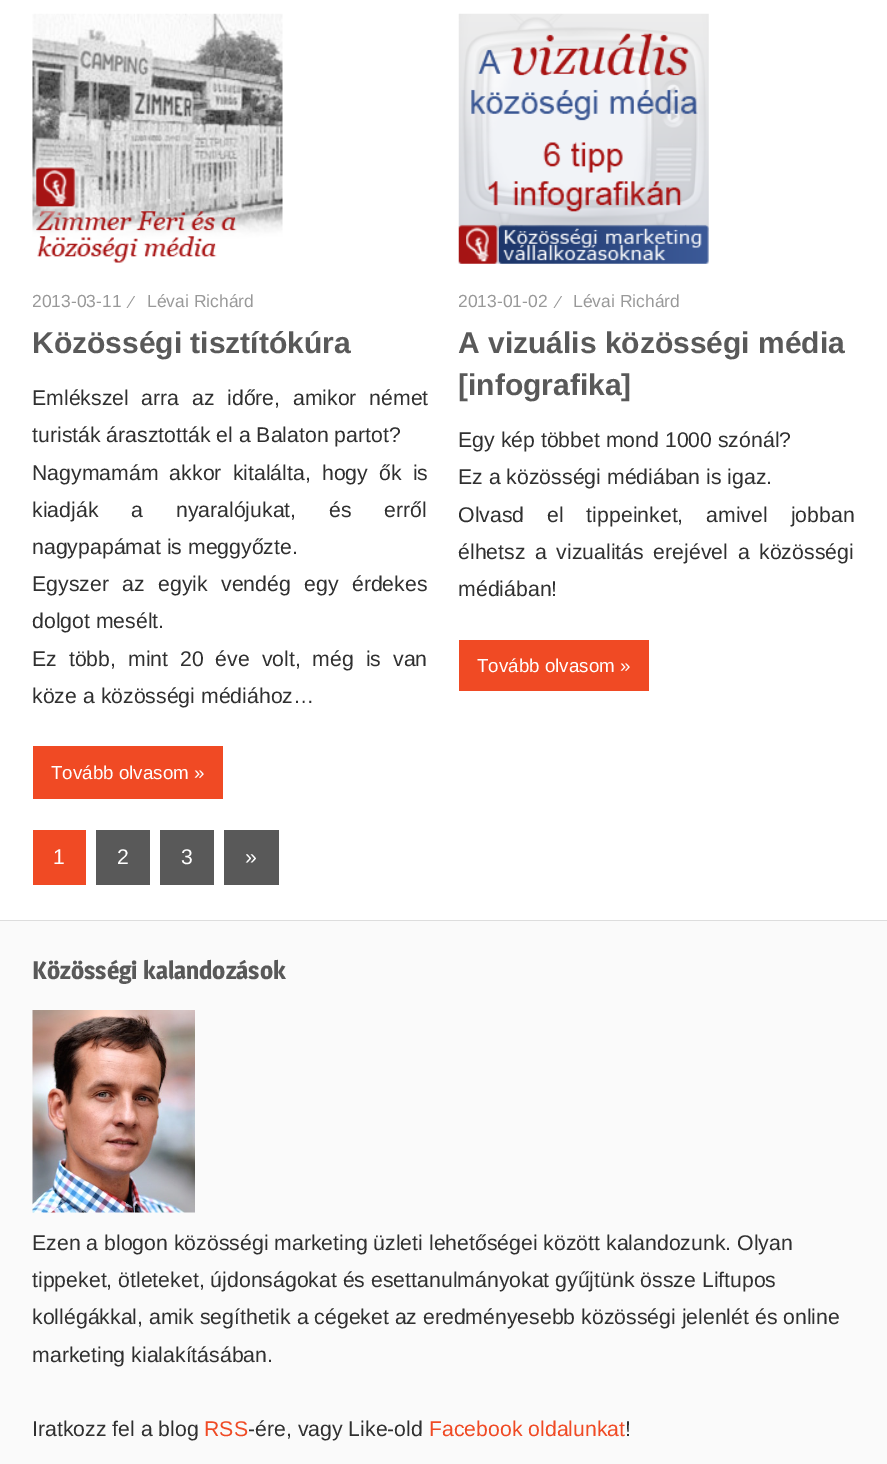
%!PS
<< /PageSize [887 1464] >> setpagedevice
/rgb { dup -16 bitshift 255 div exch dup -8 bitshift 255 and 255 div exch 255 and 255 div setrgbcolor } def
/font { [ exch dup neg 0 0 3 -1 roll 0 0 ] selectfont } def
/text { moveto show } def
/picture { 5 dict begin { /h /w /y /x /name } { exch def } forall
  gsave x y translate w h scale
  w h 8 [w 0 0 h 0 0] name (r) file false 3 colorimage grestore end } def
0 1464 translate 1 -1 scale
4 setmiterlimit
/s1 { /LiberationSans-Regular 17.5 font 16#999999 rgb } def
/s2 { /LiberationSans-Bold 30 font 16#595959 rgb } def
/s3 { /LiberationSans-Regular 21.25 font 16#303030 rgb } def
/s4 { /LiberationSans-Regular 18.75 font 16#FFFFFF rgb } def
/s5 { /LiberationSans-Regular 21.25 font 16#FFFFFF rgb } def
/s6 { /Magra-Bold 25 font 16#595959 rgb } def
/s7 { /LiberationSans-Regular 21.25 font 16#F04A24 rgb } def
16#FFFFFF rgb
0 0 887 1464 rectfill
(pic1.raw) 32 13 251 250 picture
s1
(2013-03-11) 32 307 text
(⁄) 130 308 text
(Lévai Richárd) 147 307 text
s2
(Közösségi tisztítókúra) 32 353 text
/LiberationSans-Regular 21.25 font
16#303030 rgb
32 405 moveto 6.75 0 32 (Emlékszel arra az időre, amikor német) widthshow
(turisták árasztották el a Balaton partot?) 32 442 text
32 480 moveto 5.25 0 32 (Nagymamám akkor kitalálta, hogy ők is) widthshow
32 517 moveto 27 0 32 (kiadják a nyaralójukat, és erről) widthshow
(nagypapámat is meggyőzte.) 32 554 text
32 591 moveto 7.5 0 32 (Egyszer az egyik vendég egy érdekes) widthshow
(dolgot mesélt.) 32 628 text
32 666 moveto 6 0 32 (Ez több, mint 20 éve volt, még is van) widthshow
(köze a közösségi médiához…) 32 703 text
16#F04A24 rgb
33 746 190 53 rectfill
s4
(Tovább olvasom ») 51 779 text
(pic2.raw) 458 13 251 251 picture
s1
(2013-01-02) 458 307 text
(⁄) 557 308 text
(Lévai Richárd) 573 307 text
s2
(A vizuális közösségi média) 458 353 text
([infografika]) 458 395 text
s3
(Egy kép többet mond 1000 szónál?) 458 447 text
(Ez a közösségi médiában is igaz.) 458 484 text
458 522 moveto 17 0 32 (Olvasd el tippeinket, amivel jobban) widthshow
458 559 moveto 3.75 0 32 (élhetsz a vizualitás erejével a közösségi) widthshow
(médiában!) 458 596 text
16#F04A24 rgb
459 640 190 51 rectfill
s4
(Tovább olvasom ») 477 672 text
16#F04A24 rgb
33 830 53 55 rectfill
s5
(1) 53 864 text
16#595959 rgb
96 830 54 55 rectfill
s5
(2) 117 864 text
16#595959 rgb
160 830 54 55 rectfill
s5
(3) 181 864 text
16#595959 rgb
224 830 55 55 rectfill
s5
(») 245 864 text
16#FAFAFA rgb
0 921 887 543 rectfill
16#DDDDDD rgb
0 920 887 1 rectfill
s6
(Közösségi kalandozások) 32 979 text
(pic3.raw) 32 1010 163 203 picture
s3
(Ezen a blogon közösségi marketing üzleti lehetőségei között kalandozunk. Olyan) 32 1250 text
(tippeket, ötleteket, újdonságokat és esettanulmányokat gyűjtünk össze Liftupos) 32 1287 text
(kollégákkal, amik segíthetik a cégeket az eredményesebb közösségi jelenlét és online) 32 1324 text
(marketing kialakításában.) 32 1362 text
(Iratkozz fel a blog) 32 1436 text
s7
(RSS) 204 1436 text
s3
(-ére, vagy Like-old) 248 1436 text
s7
(Facebook oldalunkat) 429 1436 text
s3
(!) 625 1436 text
showpage
